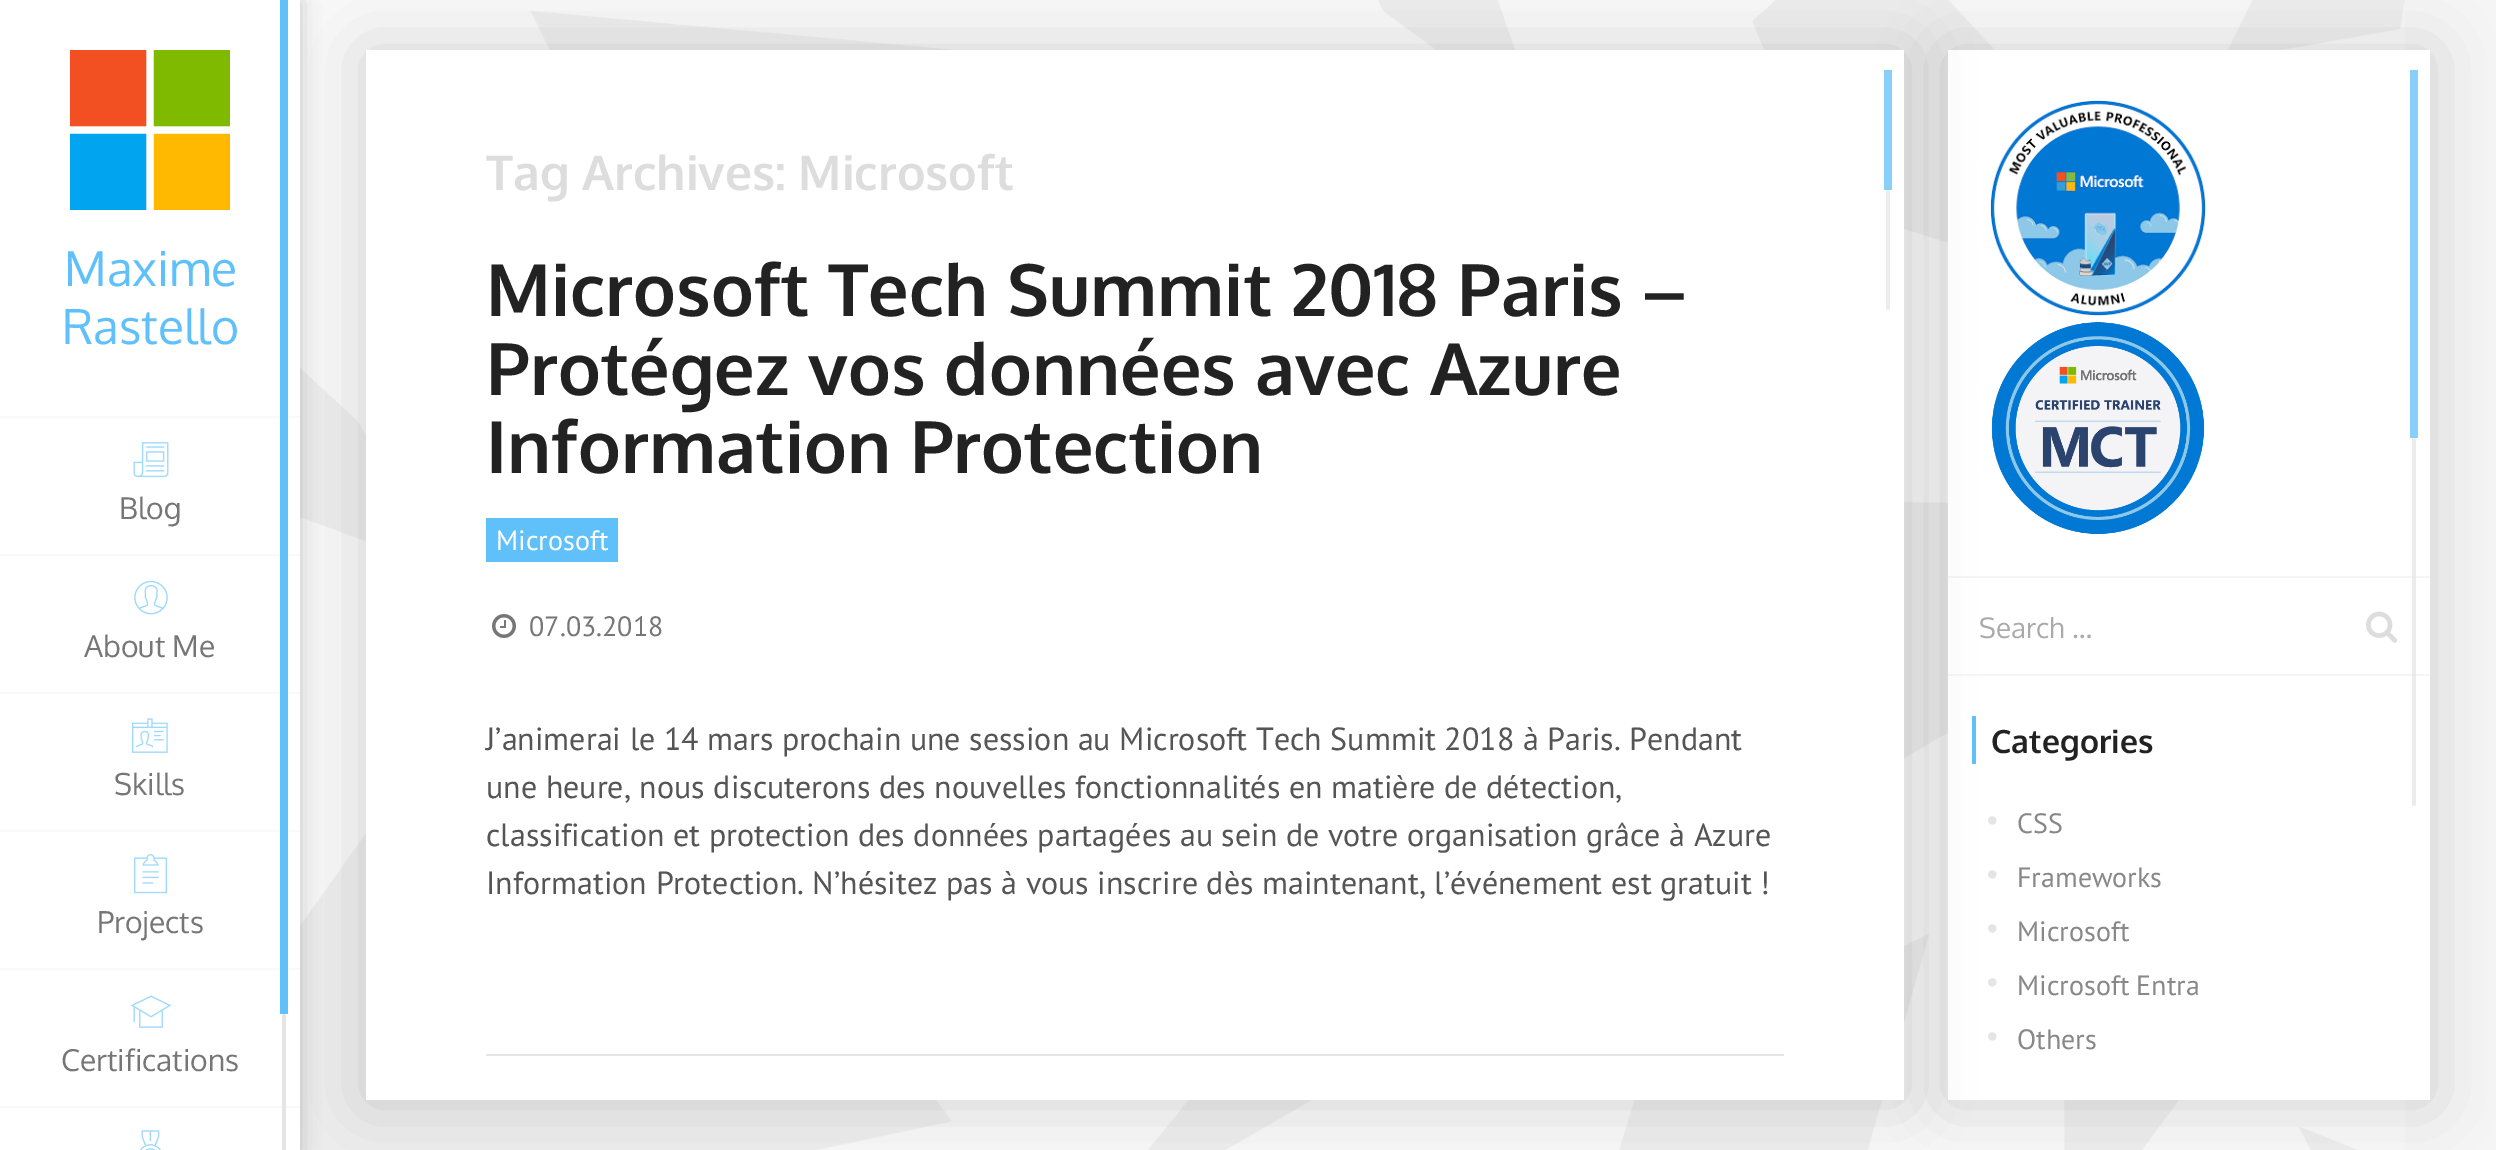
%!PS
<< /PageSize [2496 1150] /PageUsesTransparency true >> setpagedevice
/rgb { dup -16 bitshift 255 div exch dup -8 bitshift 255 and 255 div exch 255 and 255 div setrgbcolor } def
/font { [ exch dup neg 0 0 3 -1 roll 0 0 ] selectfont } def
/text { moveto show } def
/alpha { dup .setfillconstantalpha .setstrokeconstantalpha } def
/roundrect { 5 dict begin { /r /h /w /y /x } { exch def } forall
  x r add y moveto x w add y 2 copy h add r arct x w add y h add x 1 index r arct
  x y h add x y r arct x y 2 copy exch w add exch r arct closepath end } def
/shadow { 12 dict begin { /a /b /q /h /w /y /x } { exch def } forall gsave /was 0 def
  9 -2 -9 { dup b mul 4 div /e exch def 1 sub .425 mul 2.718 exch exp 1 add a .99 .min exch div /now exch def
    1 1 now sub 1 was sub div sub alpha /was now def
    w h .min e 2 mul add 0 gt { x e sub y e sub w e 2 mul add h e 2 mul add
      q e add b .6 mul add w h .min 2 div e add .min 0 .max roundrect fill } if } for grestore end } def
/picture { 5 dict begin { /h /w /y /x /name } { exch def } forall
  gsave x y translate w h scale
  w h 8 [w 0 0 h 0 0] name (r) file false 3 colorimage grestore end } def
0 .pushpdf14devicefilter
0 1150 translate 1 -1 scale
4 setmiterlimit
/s1 { /Oxygen-Regular 48 font 16#60C0FA rgb } def
/s2 { /Oxygen-Regular 30 font 16#767676 rgb } def
/s3 { /Oxygen-Bold 48 font 16#DDDDDD rgb } def
/s4 { /Oxygen-Bold 72 font 16#222222 rgb } def
/s5 { /PTSans-Regular 28 font 16#FFFFFF rgb } def
/s6 { /PTSans-Regular 28 font 16#767676 rgb } def
/s7 { /PTSans-Regular 32 font 16#555555 rgb } def
/s8 { /Oxygen-Regular 28 font 16#AAAAAA rgb } def
/s9 { /Oxygen-Bold 32 font 16#222222 rgb } def
/s10 { /PTSans-Regular 28 font 16#888888 rgb } def
16#F5F5F5 rgb
0 0 2496 1150 rectfill
(pic1.raw) 300 0 2105 1150 picture
16#000000 rgb
0 2 300 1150 0 10 0.2 shadow
1948 52 482 1050 0 33 0.15 shadow
16#FFFFFF rgb
1948 50 482 1050 rectfill
16#F5F5F5 rgb
1948 576 482 2 rectfill
(pic10.raw) 1990 100 216 216 picture
(pic11.raw) 1991 322 214 213 picture
1948 674 482 2 rectfill
16#60C0FA rgb
1972 716 4 48 rectfill
(pic13.raw) 1988 816 9 9 picture
(pic13.raw) 1988 870 9 9 picture
(pic13.raw) 1988 924 9 9 picture
(pic13.raw) 1988 978 9 9 picture
(pic13.raw) 1988 1032 9 9 picture
16#000000 rgb
366 52 1538 1050 0 33 0.15 shadow
16#FFFFFF rgb
0 0 300 1150 rectfill
(pic2.raw) 70 50 160 160 picture
s1
(Maxime) 64 286 text
(Rastello) 62 344 text
16#F9F9F9 rgb
0 416 300 2 rectfill
0 554 300 2 rectfill
(pic3.raw) 133 442 36 36 picture
s2
(Blog) 119 519 text
16#F9F9F9 rgb
0 692 300 2 rectfill
(pic4.raw) 134 580 34 35 picture
s2
(About Me) 84 657 text
16#F9F9F9 rgb
0 830 300 2 rectfill
(pic5.raw) 132 718 36 35 picture
s2
(Skills) 114 795 text
16#F9F9F9 rgb
0 968 300 2 rectfill
(pic6.raw) 134 854 34 40 picture
s2
(Projects) 97 933 text
16#F9F9F9 rgb
0 1106 300 2 rectfill
(pic7.raw) 130 995 42 33 picture
s2
(Certifications) 61 1071 text
(pic8.raw) 140 1130 21 20 picture
16#60C0FA rgb
280 0 8 1014 rectfill
16#E5E5E5 rgb
284 1014 moveto 285 1014 286 1015 286 1016 curveto 286 1150 lineto 282 1150 lineto 282 1016 lineto 282 1015 283 1014 284 1014 curveto closepath fill
16#FFFFFF rgb
366 50 1538 1050 rectfill
s3
(Tag Archives: Microsoft) 486 190 text
16#E5E5E5 rgb
486 1054 1298 2 rectfill
s4
(Microsoft Tech Summit 2018 Paris –) 486 316 text
(Protégez vos données avec Azure) 486 395 text
(Information Protection) 486 473 text
16#60C0FA rgb
486 518 132 44 rectfill
s5
(Microsoft) 496 550 text
(pic9.raw) 492 614 24 24 picture
s6
(07.03.2018) 529 636 text
s7
(J’animerai le 14 mars prochain une session au Microsoft Tech Summit 2018 à Paris. Pendant) 486 750 text
(une heure, nous discuterons des nouvelles fonctionnalités en matière de détection,) 486 798 text
(classification et protection des données partagées au sein de votre organisation grâce à Azure) 486 846 text
(Information Protection. N’hésitez pas à vous inscrire dès maintenant, l’événement est gratuit !) 486 894 text
16#88D0FB rgb
1884 70 8 120 rectfill
16#ECECEC rgb
1886 190 4 120 2 roundrect fill
s8
(Search …) 1979 638 text
(pic12.raw) 2366 611 32 32 picture
s9
(Categories) 1991 753 text
s10
(CSS) 2017 833 text
(Frameworks) 2017 887 text
(Microsoft) 2017 941 text
(Microsoft Entra) 2017 995 text
(Others) 2017 1049 text
16#88D0FB rgb
2410 70 8 368 rectfill
0.75 alpha
16#E5E5E5 rgb
2412 438 4 368 2 roundrect fill
.poppdf14devicefilter showpage
